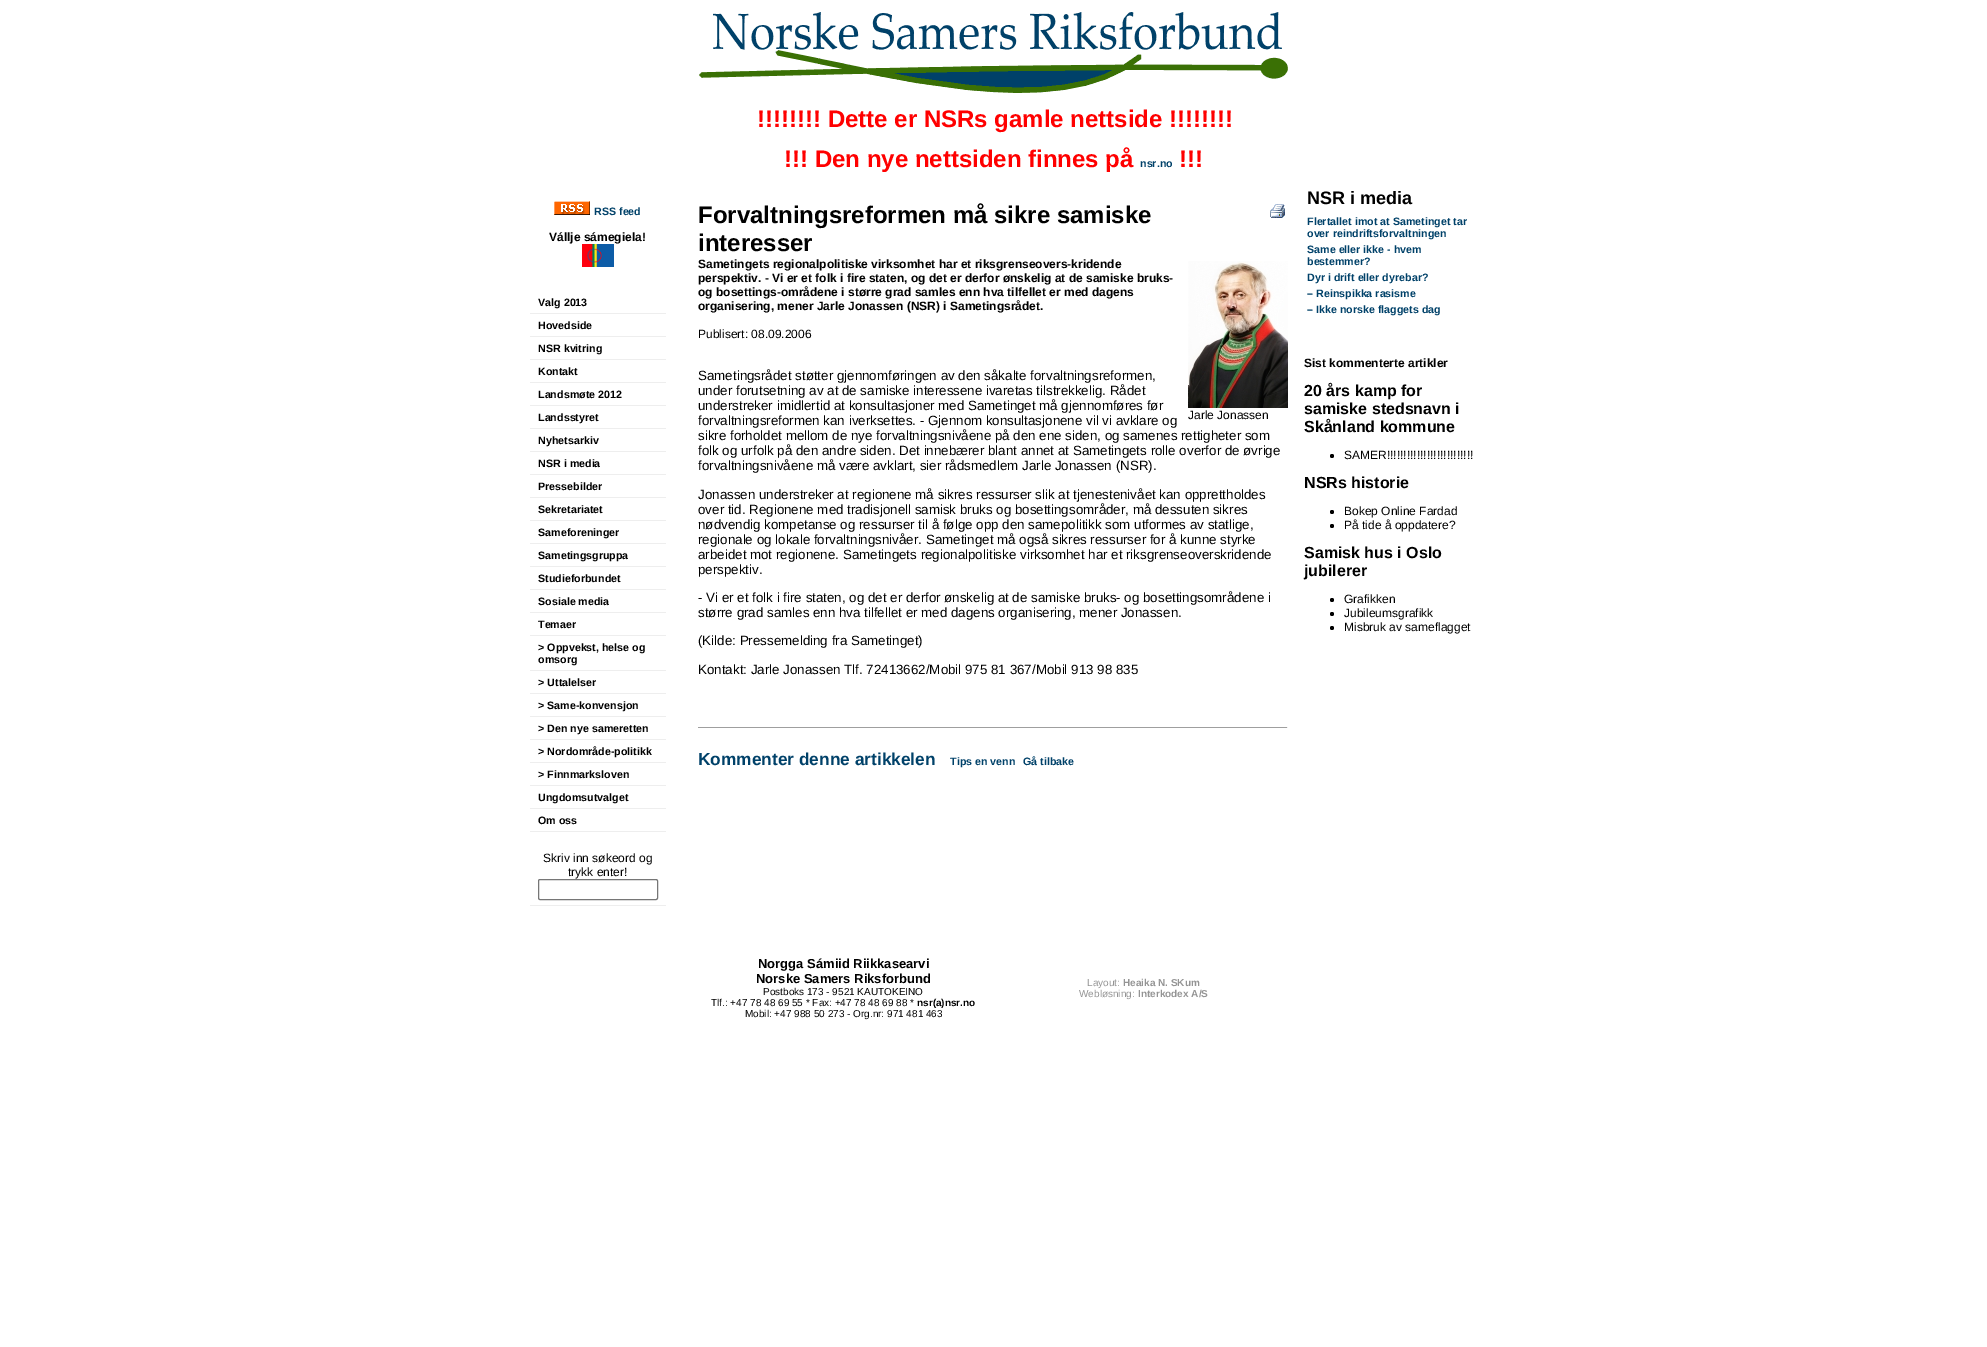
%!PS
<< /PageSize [1987 1347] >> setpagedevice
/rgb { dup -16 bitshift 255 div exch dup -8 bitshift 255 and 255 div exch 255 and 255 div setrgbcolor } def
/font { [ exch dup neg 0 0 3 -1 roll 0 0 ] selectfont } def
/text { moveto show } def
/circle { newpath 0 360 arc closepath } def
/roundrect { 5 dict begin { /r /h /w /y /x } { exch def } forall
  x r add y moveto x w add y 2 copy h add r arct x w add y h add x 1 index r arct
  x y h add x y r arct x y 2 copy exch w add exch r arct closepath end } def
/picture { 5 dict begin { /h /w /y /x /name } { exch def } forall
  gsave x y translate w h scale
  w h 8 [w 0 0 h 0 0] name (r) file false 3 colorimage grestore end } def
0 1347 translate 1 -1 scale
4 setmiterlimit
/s1 { /LiberationSans-Bold 24 font 16#FF0000 rgb } def
/s2 { /LiberationSans-Bold 10.7 font 16#004169 rgb } def
/s3 { /LiberationSans-Bold 12 font 16#000000 rgb } def
/s4 { /LiberationSans-Bold 10.7 font 16#000000 rgb } def
/s5 { /LiberationSans-Regular 12 font 16#000000 rgb } def
/s6 { /LiberationSans-Bold 24 font 16#000000 rgb } def
/s7 { /LiberationSans-Regular 13.35 font 16#000000 rgb } def
/s8 { /LiberationSans-Bold 17.3 font 16#004169 rgb } def
/s9 { /LiberationSans-Bold 18 font 16#000000 rgb } def
/s10 { /LiberationSans-Bold 16 font 16#000000 rgb } def
/s11 { /LiberationSans-Bold 13 font 16#000000 rgb } def
/s12 { /LiberationSans-Regular 10 font 16#000000 rgb } def
/s13 { /LiberationSans-Bold 10 font 16#000000 rgb } def
/s14 { /LiberationSans-Regular 10 font 16#949494 rgb } def
/s15 { /LiberationSans-Bold 10 font 16#949494 rgb } def
16#FFFFFF rgb
0 0 1987 1347 rectfill
(pic1.raw) 699 12 589 81 picture
s1
(!!!!!!!! Dette er NSRs gamle nettside !!!!!!!!) 757 127 text
(!!! Den nye nettsiden finnes på) 784 167 text
s2
(nsr.no) 1140 167 text
s1
(!!!) 1179 167 text
(pic2.raw) 554 201 36 14 picture
s2
(RSS feed) 594 215 text
s3
(Vállje sámegiela!) 549 241 text
(pic3.raw) 582 244 32 23 picture
16#EEEEEE rgb
530 313 136 1 rectfill
s4
(Valg 2013) 538 306 text
16#EEEEEE rgb
530 336 136 1 rectfill
s4
(Hovedside) 538 329 text
16#EEEEEE rgb
530 359 136 1 rectfill
s4
(NSR kvitring) 538 352 text
16#EEEEEE rgb
530 382 136 1 rectfill
s4
(Kontakt) 538 375 text
16#EEEEEE rgb
530 405 136 1 rectfill
s4
(Landsmøte 2012) 538 398 text
16#EEEEEE rgb
530 428 136 1 rectfill
s4
(Landsstyret) 538 421 text
16#EEEEEE rgb
530 451 136 1 rectfill
s4
(Nyhetsarkiv) 538 444 text
16#EEEEEE rgb
530 474 136 1 rectfill
s4
(NSR i media) 538 467 text
16#EEEEEE rgb
530 497 136 1 rectfill
s4
(Pressebilder) 538 490 text
16#EEEEEE rgb
530 520 136 1 rectfill
s4
(Sekretariatet) 538 513 text
16#EEEEEE rgb
530 543 136 1 rectfill
s4
(Sameforeninger) 538 536 text
16#EEEEEE rgb
530 566 136 1 rectfill
s4
(Sametingsgruppa) 538 559 text
16#EEEEEE rgb
530 589 136 1 rectfill
s4
(Studieforbundet) 538 582 text
16#EEEEEE rgb
530 612 136 1 rectfill
s4
(Sosiale media) 538 605 text
16#EEEEEE rgb
530 635 136 1 rectfill
s4
(Temaer) 538 628 text
16#EEEEEE rgb
530 670 136 1 rectfill
s4
(> Oppvekst, helse og) 538 651 text
(omsorg) 538 663 text
16#EEEEEE rgb
530 693 136 1 rectfill
s4
(> Uttalelser) 538 686 text
16#EEEEEE rgb
530 716 136 1 rectfill
s4
(> Same-konvensjon) 538 709 text
16#EEEEEE rgb
530 739 136 1 rectfill
s4
(> Den nye sameretten) 538 732 text
16#EEEEEE rgb
530 762 136 1 rectfill
s4
(> Nordområde-politikk) 538 755 text
16#EEEEEE rgb
530 785 136 1 rectfill
s4
(> Finnmarksloven) 538 778 text
16#EEEEEE rgb
530 808 136 1 rectfill
s4
(Ungdomsutvalget) 538 801 text
16#EEEEEE rgb
530 831 136 1 rectfill
s4
(Om oss) 538 824 text
16#EEEEEE rgb
530 905 136 1 rectfill
s5
(Skriv inn søkeord og) 543 862 text
(trykk enter!) 568 876 text
16#767676 rgb
538.5 879.5 119 20 1.5 roundrect stroke
s6
(Forvaltningsreformen må sikre samiske) 698 223 text
(pic4.raw) 1270 204 15 14 picture
(interesser) 698 251 text
s3
(Sametingets regionalpolitiske virksomhet har et riksgrenseovers-kridende) 698 268 text
(perspektiv. - Vi er et folk i fire staten, og det er derfor ønskelig at de samiske bruks-) 698 282 text
(og bosettings-områdene i større grad samles enn hva tilfellet er med dagens) 698 296 text
(organisering, mener Jarle Jonassen \(NSR\) i Sametingsrådet.) 698 310 text
s5
(Publisert: 08.09.2006) 698 338 text
s7
(Sametingsrådet støtter gjennomføringen av den såkalte forvaltningsreformen,) 698 380 text
(under forutsetning av at de samiske interessene ivaretas tilstrekkelig. Rådet) 698 395 text
(understreker imidlertid at konsultasjoner med Sametinget må gjennomføres før) 698 410 text
(forvaltningsreformen kan iverksettes. - Gjennom konsultasjonene vil vi avklare og) 698 425 text
(sikre forholdet mellom de nye forvaltningsnivåene på den ene siden, og samenes rettigheter som) 698 440 text
(folk og urfolk på den andre siden. Det innebærer blant annet at Sametingets rolle overfor de øvrige) 698 455 text
(forvaltningsnivåene må være avklart, sier rådsmedlem Jarle Jonassen \(NSR\).) 698 470 text
(Jonassen understreker at regionene må sikres ressurser slik at tjenestenivået kan opprettholdes) 698 499 text
(over tid. Regionene med tradisjonell samisk bruks og bosettingsområder, må dessuten sikres) 698 514 text
(nødvendig kompetanse og ressurser til å følge opp den samepolitikk som utformes av statlige,) 698 529 text
(regionale og lokale forvaltningsnivåer. Sametinget må også sikres ressurser for å kunne styrke) 698 544 text
(arbeidet mot regionene. Sametingets regionalpolitiske virksomhet har et riksgrenseoverskridende) 698 559 text
(perspektiv.) 698 574 text
(- Vi er et folk i fire staten, og det er derfor ønskelig at de samiske bruks- og bosettingsområdene i) 698 602 text
(større grad samles enn hva tilfellet er med dagens organisering, mener Jonassen.) 698 617 text
(\(Kilde: Pressemelding fra Sametinget\)) 698 645 text
(Kontakt: Jarle Jonassen Tlf. 72413662/Mobil 975 81 367/Mobil 913 98 835) 698 674 text
16#9F9F9F rgb
698 727 590 1 rectfill
16#EEEEEE rgb
1287 727 1 1 rectfill
s8
(Kommenter denne artikkelen) 698 765 text
s2
(Tips en venn) 950 765 text
(Gå tilbake) 1023 765 text
(pic5.raw) 1188 261 100 147 picture
s5
(Jarle Jonassen) 1188 419 text
s9
(NSR i media) 1307 204 text
s2
(Flertallet imot at Sametinget tar) 1307 225 text
(over reindriftsforvaltningen) 1307 237 text
(Same eller ikke - hvem) 1307 253 text
(bestemmer?) 1307 265 text
(Dyr i drift eller dyrebar?) 1307 281 text
(– Reinspikka rasisme) 1307 297 text
(– Ikke norske flaggets dag) 1307 313 text
s3
(Sist kommenterte artikler) 1304 367 text
s10
(20 års kamp for) 1304 396 text
(samiske stedsnavn i) 1304 414 text
(Skånland kommune) 1304 432 text
1332 456 2 circle fill
s5
(SAMER!!!!!!!!!!!!!!!!!!!!!!!!!!) 1344 459 text
s10
(NSRs historie) 1304 488 text
1332 512 2 circle fill
s5
(Bokep Online Fardad) 1344 515 text
1332 526 2 circle fill
(På tide å oppdatere?) 1344 529 text
s10
(Samisk hus i Oslo) 1304 558 text
(jubilerer) 1304 576 text
1332 600 2 circle fill
s5
(Grafikken) 1344 603 text
1332 614 2 circle fill
(Jubileumsgrafikk) 1344 617 text
1332 628 2 circle fill
(Misbruk av sameflagget) 1344 631 text
s11
(Norgga Sámiid Riikkasearvi) 758 968 text
(Norske Samers Riksforbund) 756 983 text
s12
(Postboks 173 - 9521 KAUTOKEINO) 763 995 text
(Tlf.: +47 78 48 69 55 * Fax: +47 78 48 69 88 *) 711 1006 text
s13
(nsr\(a\)nsr.no) 917 1006 text
s12
(Mobil: +47 988 50 273 - Org.nr: 971 481 463) 745 1017 text
s14
(Layout:) 1087 986 text
s15
(Heaika N. SKum) 1123 986 text
s14
(Webløsning:) 1079 997 text
s15
(Interkodex A/S) 1138 997 text
showpage
